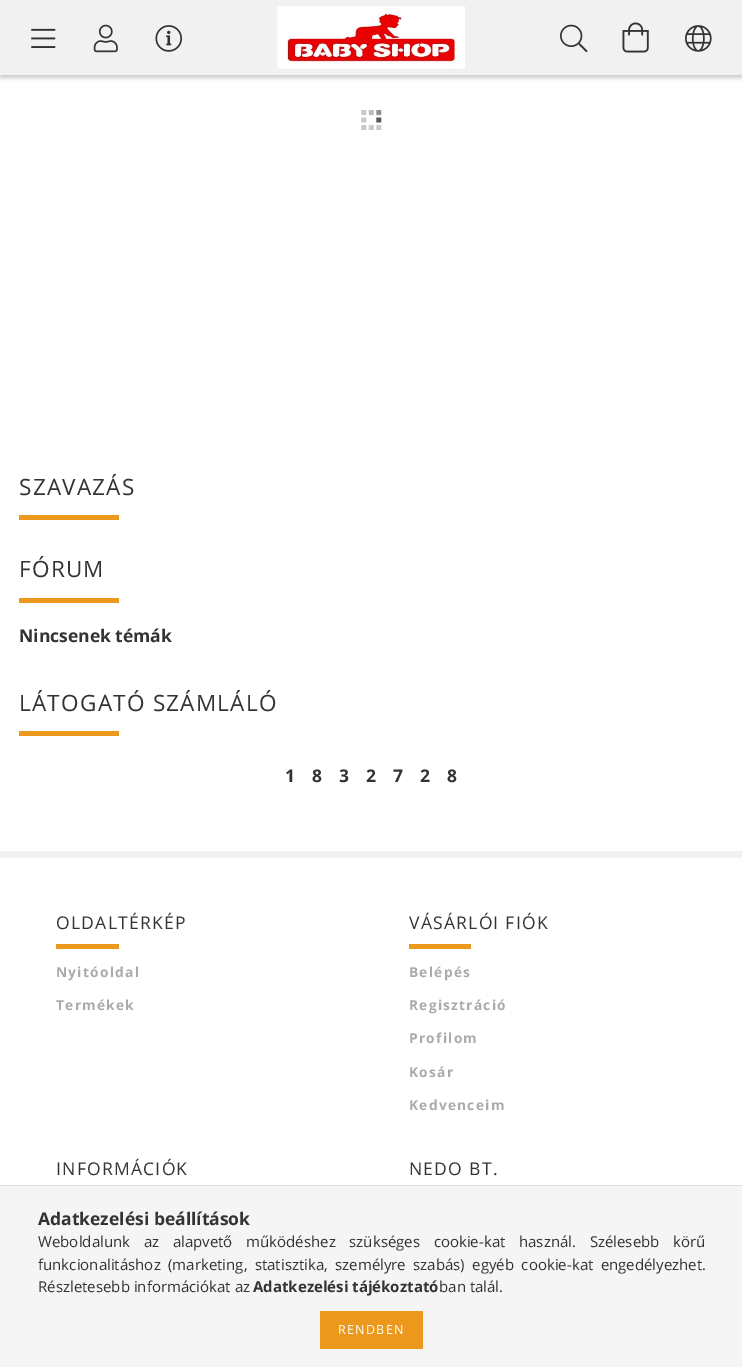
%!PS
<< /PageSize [742 1367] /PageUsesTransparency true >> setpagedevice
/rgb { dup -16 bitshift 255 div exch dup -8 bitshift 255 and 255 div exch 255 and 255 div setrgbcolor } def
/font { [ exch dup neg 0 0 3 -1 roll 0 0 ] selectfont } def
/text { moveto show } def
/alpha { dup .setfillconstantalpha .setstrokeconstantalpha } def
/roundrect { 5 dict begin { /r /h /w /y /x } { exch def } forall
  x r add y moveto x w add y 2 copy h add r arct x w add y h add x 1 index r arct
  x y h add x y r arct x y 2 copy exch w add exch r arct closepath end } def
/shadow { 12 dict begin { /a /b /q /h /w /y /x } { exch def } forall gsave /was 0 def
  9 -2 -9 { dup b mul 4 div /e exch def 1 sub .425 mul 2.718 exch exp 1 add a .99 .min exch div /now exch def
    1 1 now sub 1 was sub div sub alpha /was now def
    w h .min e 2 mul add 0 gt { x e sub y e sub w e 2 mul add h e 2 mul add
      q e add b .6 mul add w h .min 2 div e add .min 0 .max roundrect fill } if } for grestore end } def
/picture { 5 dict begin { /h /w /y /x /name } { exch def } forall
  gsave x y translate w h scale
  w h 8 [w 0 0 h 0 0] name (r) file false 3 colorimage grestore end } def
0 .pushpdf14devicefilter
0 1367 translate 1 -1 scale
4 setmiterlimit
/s1 { /OpenSans-Bold 17.5 font 16#333333 rgb } def
/s2 { /OpenSans-Regular 15 font 16#333333 rgb } def
/s3 { /OpenSans-Bold 15 font 16#333333 rgb } def
16#FFFFFF rgb
0 0 742 1367 rectfill
16#000000 rgb
0 3 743 75 0 2 0.2 shadow
16#F1F1F1 rgb
0 0 742 75 rectfill
(pic1.raw) 31 28 25 20 picture
(pic2.raw) 93 24 25 29 picture
(pic3.raw) 155 25 28 27 picture
(pic4.raw) 277 6 188 63 picture
(pic5.raw) 560 24 28 29 picture
(pic6.raw) 622 22 27 31 picture
(pic7.raw) 685 25 27 27 picture
(pic8.raw) 361 110 21 20 picture
/OpenSans-Regular 22.5 font
16#333333 rgb
19 495 moveto 1.25 0 (SZAVAZÁS) ashow
16#EB981C rgb
19 515 100 5 rectfill
16#333333 rgb
19 577 moveto 1.25 0 (FÓRUM) ashow
16#EB981C rgb
19 598 100 5 rectfill
s1
(Nincsenek témák) 19 642 text
/OpenSans-Regular 22.5 font
19 711 moveto 1.25 0 (LÁTOGATÓ SZÁMLÁLÓ) ashow
16#EB981C rgb
19 731 100 5 rectfill
s1
(1) 285 782 text
(8) 312 782 text
(3) 339 782 text
(2) 366 782 text
(7) 393 782 text
(2) 420 782 text
(8) 447 782 text
16#F1F1F1 rgb
0 851 742 7 rectfill
/OpenSans-Regular 17.5 font
16#333333 rgb
56 929 moveto 1.25 0 (OLDALTÉRKÉP) ashow
16#EB981C rgb
56 944 63 5 rectfill
/OpenSans-Bold 13.75 font
16#AAAAAA rgb
56 977 moveto 1.25 0 (Nyitóoldal) ashow
56 1010 moveto 1.25 0 (Termékek) ashow
/OpenSans-Regular 17.5 font
16#333333 rgb
409 929 moveto 1.25 0 (VÁSÁRLÓI FIÓK) ashow
16#EB981C rgb
409 944 62 5 rectfill
/OpenSans-Bold 13.75 font
16#AAAAAA rgb
409 977 moveto 1.25 0 (Belépés) ashow
409 1010 moveto 1.25 0 (Regisztráció) ashow
409 1043 moveto 1.25 0 (Profilom) ashow
409 1077 moveto 1.25 0 (Kosár) ashow
409 1110 moveto 1.25 0 (Kedvenceim) ashow
/OpenSans-Regular 17.5 font
16#333333 rgb
56 1175 moveto 1.25 0 (INFORMÁCIÓK) ashow
409 1175 moveto 1.25 0 (NEDO BT.) ashow
16#F5F5F5 rgb
0 1186 742 181 rectfill
16#DDDDDD rgb
0 1185 742 1 rectfill
s1
(Adatkezelési beállítások) 38 1225 text
/OpenSans-Regular 15 font
38 1247 moveto 9.75 0 32 (Weboldalunk az alapvető működéshez szükséges cookie-kat használ. Szélesebb körű) widthshow
38 1270 moveto 3.5 0 32 (funkcionalitáshoz \(marketing, statisztika, személyre szabás\) egyéb cookie-kat engedélyezhet.) widthshow
(Részletesebb információkat az) 38 1292 text
s3
(Adatkezelési tájékoztató) 253 1292 text
s2
(ban talál.) 439 1292 text
16#EB981C rgb
320 1311 103 38 rectfill
/OpenSans-Regular 12.5 font
16#FFFFFF rgb
338 1334 moveto 1.25 0 (RENDBEN) ashow
.poppdf14devicefilter showpage
